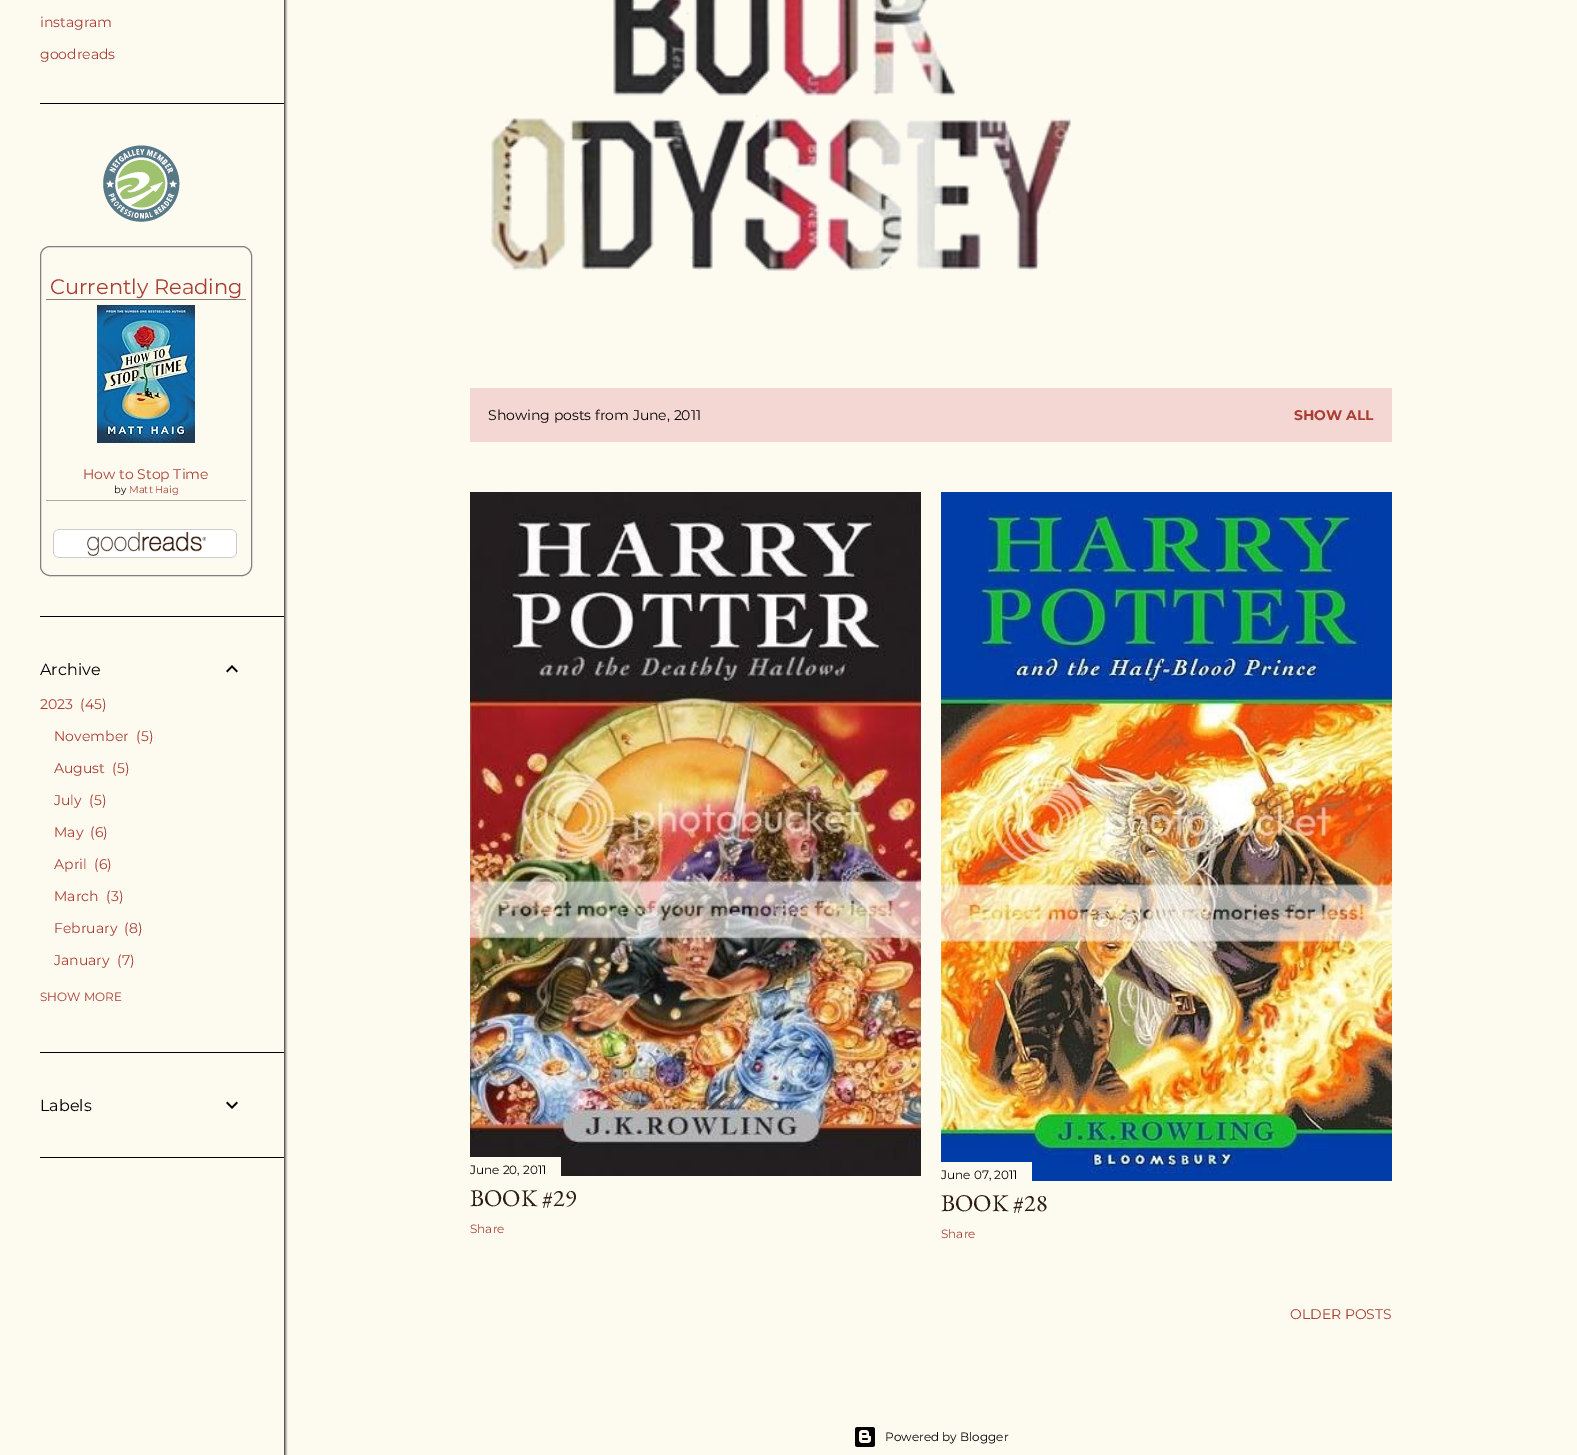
%!PS
<< /PageSize [1577 1455] /PageUsesTransparency true >> setpagedevice
/rgb { dup -16 bitshift 255 div exch dup -8 bitshift 255 and 255 div exch 255 and 255 div setrgbcolor } def
/font { [ exch dup neg 0 0 3 -1 roll 0 0 ] selectfont } def
/text { moveto show } def
/alpha { dup .setfillconstantalpha .setstrokeconstantalpha } def
/roundrect { 5 dict begin { /r /h /w /y /x } { exch def } forall
  x r add y moveto x w add y 2 copy h add r arct x w add y h add x 1 index r arct
  x y h add x y r arct x y 2 copy exch w add exch r arct closepath end } def
/shadow { 12 dict begin { /a /b /q /h /w /y /x } { exch def } forall gsave /was 0 def
  9 -2 -9 { dup b mul 4 div /e exch def 1 sub .425 mul 2.718 exch exp 1 add a .99 .min exch div /now exch def
    1 1 now sub 1 was sub div sub alpha /was now def
    w h .min e 2 mul add 0 gt { x e sub y e sub w e 2 mul add h e 2 mul add
      q e add b .6 mul add w h .min 2 div e add .min 0 .max roundrect fill } if } for grestore end } def
/picture { 5 dict begin { /h /w /y /x /name } { exch def } forall
  gsave x y translate w h scale
  w h 8 [w 0 0 h 0 0] name (r) file false 3 colorimage grestore end } def
0 .pushpdf14devicefilter
0 1455 translate 1 -1 scale
4 setmiterlimit
/s1 { /Montserrat-Regular 14 font 16#A93E33 rgb } def
/s2 { /Montserrat-Regular 21 font 16#A93E33 rgb } def
/s3 { /Montserrat-Regular 10 font 16#000000 rgb } def
/s4 { /Montserrat-Regular 10 font 16#A93E33 rgb } def
/s5 { /Montserrat-Regular 16 font 16#000000 rgb } def
/s6 { /Montserrat-Regular 12 font 16#A93E33 rgb } def
/s7 { /Montserrat-Regular 14 font 16#000000 rgb } def
/s8 { /Montserrat-Bold 14 font 16#A93E33 rgb } def
/s9 { /Montserrat-Regular 12 font 16#000000 rgb } def
/s10 { /EBGaramond-Regular 24 font 16#2C1D14 rgb } def
16#FDFAF0 rgb
0 0 1577 1455 rectfill
gsave
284 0 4 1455 rectclip
16#000000 rgb
1 -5 284 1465 0 1.5 1 shadow
grestore
s1
(instagram) 40 27 text
(goodreads) 40 59 text
16#000000 rgb
40 103 244 1 rectfill
(pic1.raw) 103 145 77 77 picture
16#808080 rgb
40.5 246.5 211 329 9.5 roundrect stroke
46 299 200 1 rectfill
s2
(Currently Reading) 50 294 text
16#AAAAAA rgb
46 500 200 1 rectfill
(pic2.raw) 97 305 98 138 picture
s1
(How to Stop Time) 83 479 text
s3
(by) 114 493 text
s4
(Matt Haig) 129 493 text
(pic3.raw) 53 529 184 29 picture
16#000000 rgb
40 616 244 1 rectfill
s5
(Archive) 40 675 text
(pic4.raw) 226 665 12 8 picture
s1
(2023) 40 709 text
(\(45\)) 80 709 text
(November) 54 741 text
(\(5\)) 136 741 text
(August) 54 773 text
(\(5\)) 112 773 text
(July) 54 805 text
(\(5\)) 89 805 text
(May) 54 837 text
(\(6\)) 90 837 text
(April) 54 869 text
(\(6\)) 94 869 text
(March) 54 901 text
(\(3\)) 106 901 text
(February) 54 933 text
(\(8\)) 124 933 text
(January) 54 965 text
(\(7\)) 117 965 text
s6
(SHOW MORE) 40 1001 text
16#000000 rgb
40 1052 244 1 rectfill
s5
(Labels) 40 1111 text
(pic5.raw) 226 1101 12 8 picture
40 1157 244 1 rectfill
(pic6.raw) 489 0 582 271 picture
16#F4D6D3 rgb
470 388 922 54 rectfill
s7
(Showing posts from June, 2011) 488 420 text
s8
(SHOW ALL) 1294 420 text
(pic7.raw) 470 492 451 684 picture
16#FDFAF0 rgb
470 1157 91 19 rectfill
s9
(June 20, 2011) 470 1174 text
s10
(BOOK #29) 470 1206 text
s6
(Share) 470 1233 text
(pic8.raw) 941 492 451 689 picture
16#FDFAF0 rgb
941 1162 91 19 rectfill
s9
(June 07, 2011) 941 1179 text
s10
(BOOK #28) 941 1211 text
s6
(Share) 941 1238 text
s1
(OLDER POSTS) 1290 1319 text
(pic9.raw) 855 1427 20 20 picture
s9
(Powered by Blogger) 885 1441 text
.poppdf14devicefilter showpage
